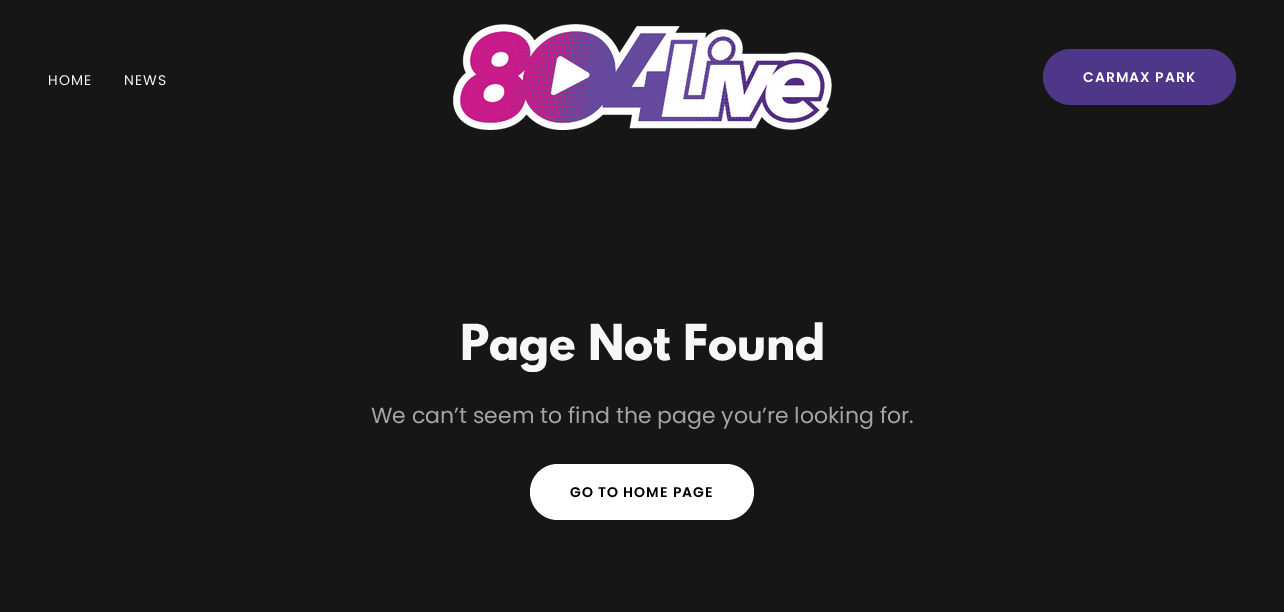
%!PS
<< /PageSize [1284 612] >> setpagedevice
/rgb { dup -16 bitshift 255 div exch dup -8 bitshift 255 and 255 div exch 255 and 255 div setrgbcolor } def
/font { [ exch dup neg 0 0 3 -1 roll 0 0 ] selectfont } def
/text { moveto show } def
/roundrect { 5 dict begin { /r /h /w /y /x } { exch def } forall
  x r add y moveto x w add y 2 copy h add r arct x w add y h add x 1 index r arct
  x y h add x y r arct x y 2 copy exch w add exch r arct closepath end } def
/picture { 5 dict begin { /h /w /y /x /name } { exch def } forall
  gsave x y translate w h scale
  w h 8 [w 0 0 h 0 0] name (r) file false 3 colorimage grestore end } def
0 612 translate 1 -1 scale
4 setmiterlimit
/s1 { /LeagueSpartan-Bold 44 font 16#F7F7F7 rgb } def
/s2 { /Poppins-Regular 22 font 16#A4A4A4 rgb } def
16#161616 rgb
0 0 1284 612 rectfill
/Poppins-Regular 14 font
16#F7F7F7 rgb
48 85 moveto 1 0 (HOME) ashow
124 85 moveto 1 0 (NEWS) ashow
(pic1.raw) 453 24 379 106 picture
16#4E3689 rgb
1043 49 193 56 28 roundrect fill
/Poppins-SemiBold 14 font
16#FFFFFF rgb
1083 82 moveto 1 0 (CARMAX PARK) ashow
s1
(Page Not Found) 460 360 text
s2
(We can’t seem to find the page you’re looking for.) 371 423 text
16#FFFFFF rgb
530 464 224 56 28 roundrect fill
/Poppins-SemiBold 14 font
16#000000 rgb
570 497 moveto 1 0 (GO TO HOME PAGE) ashow
showpage
